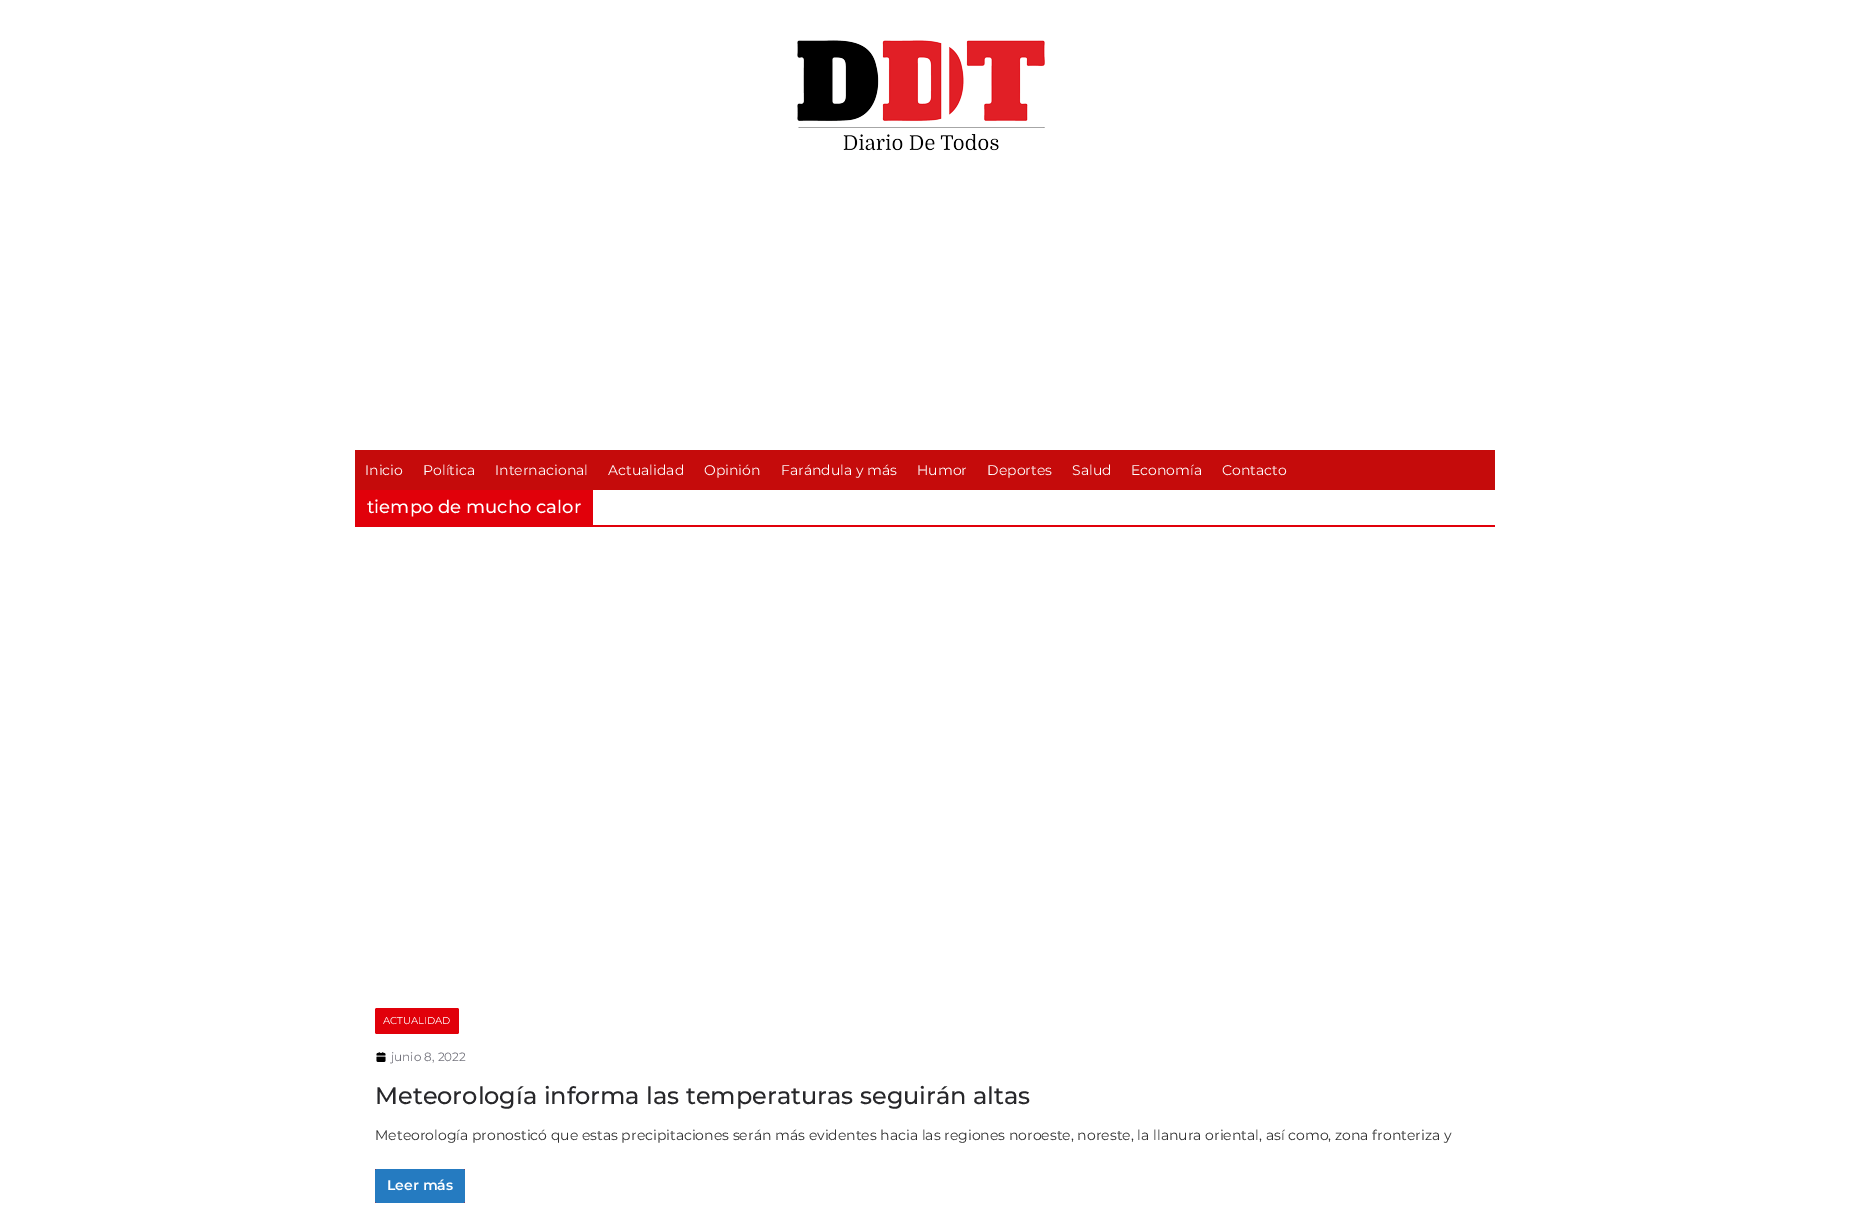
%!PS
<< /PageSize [1850 1208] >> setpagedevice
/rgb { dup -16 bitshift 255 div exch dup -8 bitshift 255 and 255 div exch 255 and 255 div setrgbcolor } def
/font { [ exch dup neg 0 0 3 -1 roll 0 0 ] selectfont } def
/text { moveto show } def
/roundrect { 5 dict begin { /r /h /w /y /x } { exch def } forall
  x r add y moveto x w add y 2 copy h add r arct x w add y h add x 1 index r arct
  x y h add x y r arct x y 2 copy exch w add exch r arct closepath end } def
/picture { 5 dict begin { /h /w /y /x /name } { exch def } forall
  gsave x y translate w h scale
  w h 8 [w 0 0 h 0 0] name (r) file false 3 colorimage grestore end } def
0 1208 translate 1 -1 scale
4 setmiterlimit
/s1 { /Montserrat-Regular 14 font 16#FFFFFF rgb } def
/s2 { /Montserrat-Medium 18 font 16#FFFFFF rgb } def
/s3 { /Montserrat-Regular 10 font 16#FFFFFF rgb } def
/s4 { /Montserrat-Regular 12 font 16#71717A rgb } def
/s5 { /Montserrat-Medium 24 font 16#27272A rgb } def
/s6 { /Montserrat-Regular 14 font 16#303030 rgb } def
/s7 { /Montserrat-SemiBold 14 font 16#FFFFFF rgb } def
16#FFFFFF rgb
0 0 1850 1208 rectfill
(pic1.raw) 797 40 248 111 picture
16#C50B0B rgb
355 450 1140 40 rectfill
s1
(Inicio) 365 475 text
(Política) 423 475 text
(Internacional) 495 475 text
(Actualidad) 608 475 text
(Opinión) 704 475 text
(Farándula y más) 781 475 text
(Humor) 917 475 text
(Deportes) 987 475 text
(Salud) 1072 475 text
(Economía) 1131 475 text
(Contacto) 1222 475 text
16#E1000A rgb
355 525 1140 2 rectfill
355 490 238 35 rectfill
s2
(tiempo de mucho calor) 367 513 text
16#E1000A rgb
375 1008 84 26 2 roundrect fill
s3
(ACTUALIDAD) 383 1024 text
(pic2.raw) 376 1052 10 10 picture
s4
(junio 8, 2022) 391 1061 text
s5
(Meteorología informa las temperaturas seguirán altas) 375 1104 text
s6
(Meteorología pronosticó que estas precipitaciones serán más evidentes hacia las regiones noroeste, noreste, la llanura oriental, así como, zona fronteriza y) 375 1140 text
16#E1000A rgb
375 1169 90 34 rectfill
16#257BC1 rgb
375 1169 90 34 2 roundrect fill
s7
(Leer más) 387 1190 text
showpage
